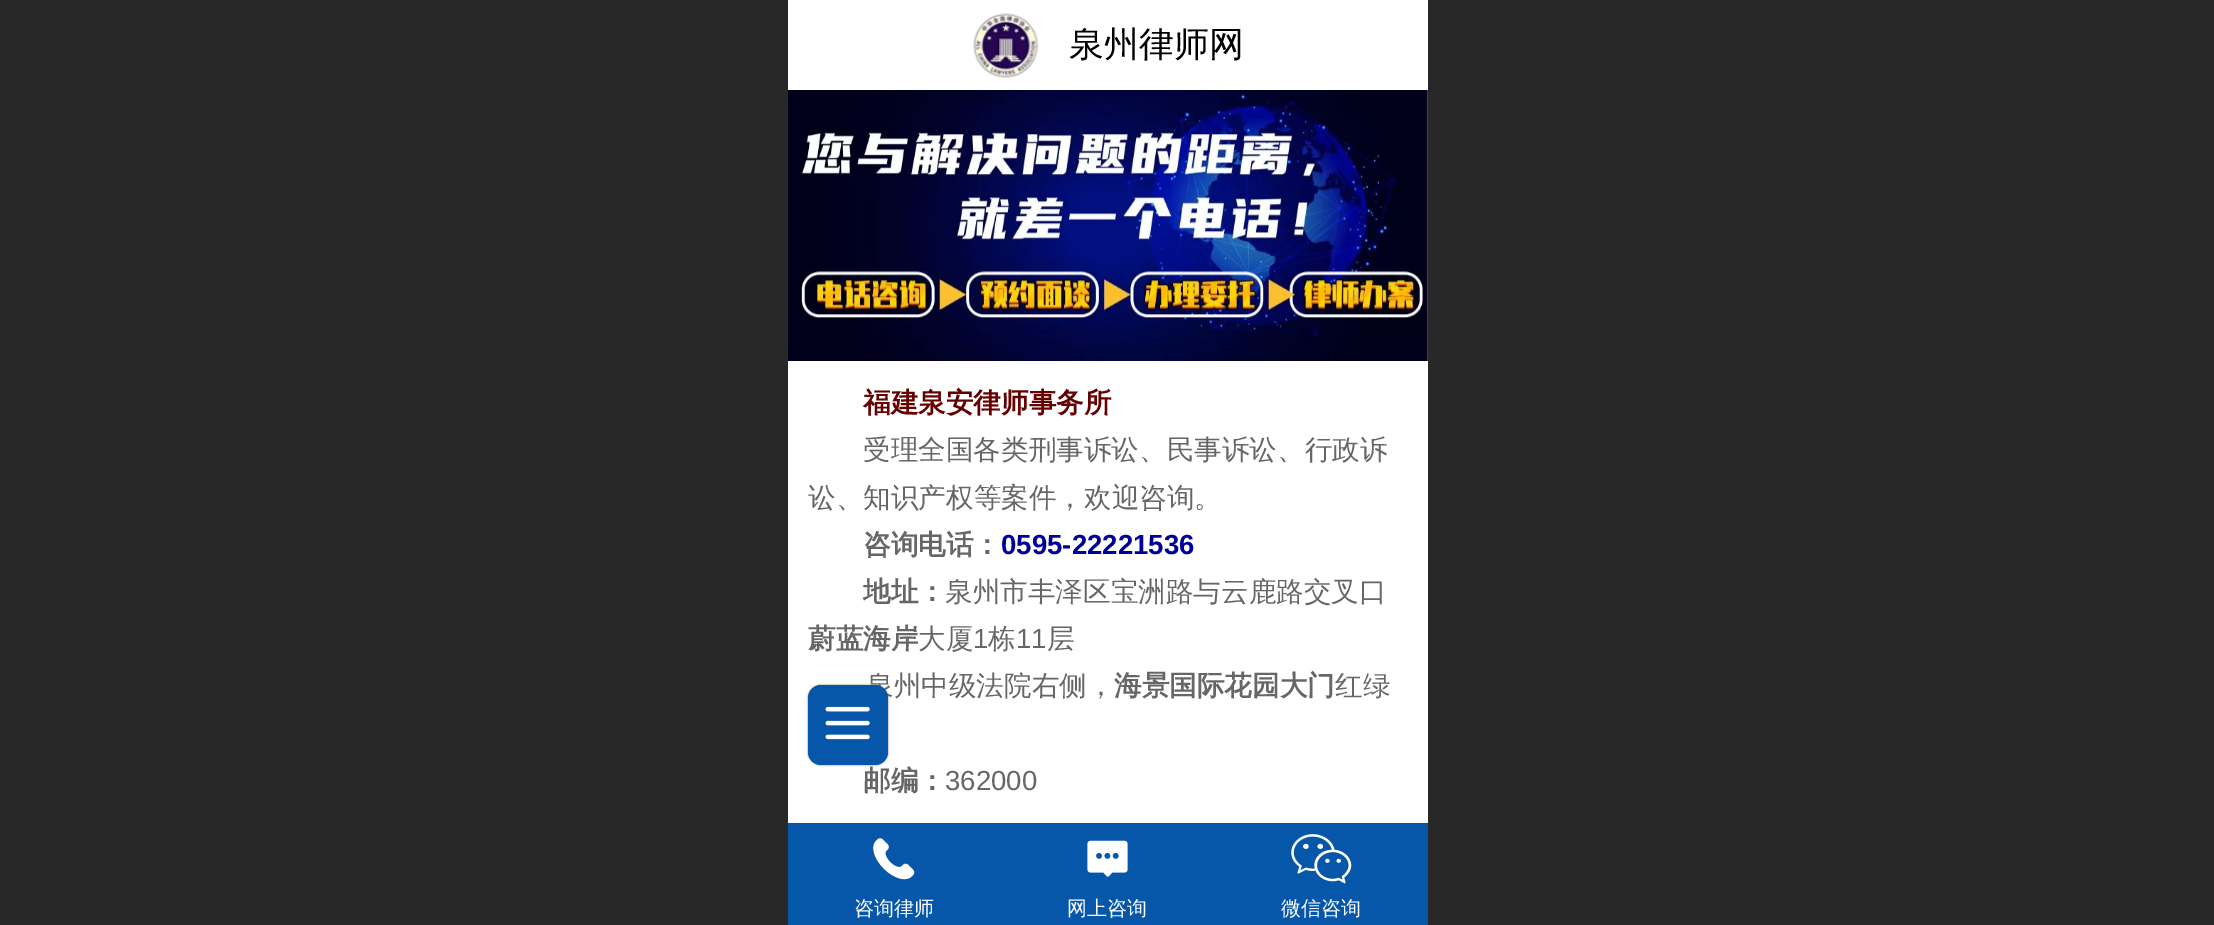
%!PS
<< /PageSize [2214 925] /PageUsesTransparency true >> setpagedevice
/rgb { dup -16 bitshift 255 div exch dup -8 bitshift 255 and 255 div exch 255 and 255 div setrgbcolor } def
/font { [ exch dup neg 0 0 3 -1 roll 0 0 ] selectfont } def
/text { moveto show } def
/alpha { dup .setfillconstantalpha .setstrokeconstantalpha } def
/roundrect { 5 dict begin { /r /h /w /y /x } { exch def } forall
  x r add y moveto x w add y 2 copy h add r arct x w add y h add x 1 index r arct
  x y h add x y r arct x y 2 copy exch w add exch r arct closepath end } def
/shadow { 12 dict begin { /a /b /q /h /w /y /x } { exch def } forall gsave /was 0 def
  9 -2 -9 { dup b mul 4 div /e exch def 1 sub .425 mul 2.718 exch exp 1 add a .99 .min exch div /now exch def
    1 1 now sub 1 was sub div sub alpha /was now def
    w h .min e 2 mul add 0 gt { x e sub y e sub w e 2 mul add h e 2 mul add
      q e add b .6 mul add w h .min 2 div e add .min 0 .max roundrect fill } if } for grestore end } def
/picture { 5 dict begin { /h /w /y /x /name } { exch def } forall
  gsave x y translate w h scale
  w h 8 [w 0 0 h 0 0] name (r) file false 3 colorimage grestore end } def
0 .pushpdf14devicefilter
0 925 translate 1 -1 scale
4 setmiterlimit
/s1 { /WenQuanYiZenHei-Medium 35 font 16#000000 rgb } def
/s2 { /WenQuanYiZenHei-Medium 27.6 font 16#666666 rgb } def
/s3 { /WenQuanYiZenHei-Bold 27.6 font 16#660000 rgb } def
/s4 { /WenQuanYiZenHei-Bold 27.6 font 16#666666 rgb } def
/s5 { /LiberationSans-Bold 27.6 font 16#000099 rgb } def
/s6 { /LiberationSans-Regular 27.6 font 16#666666 rgb } def
/s7 { /WenQuanYiZenHei-Medium 20 font 16#FFFFFF rgb } def
16#FFFFFF rgb
0 0 2214 925 rectfill
16#282828 rgb
0 0 788 925 rectfill
(pic1.raw) 973 13 66 65 picture
s1
(泉州律师网) 1069 56 text
808 685 80 80 13 1 0.5 shadow
s2
(泉州中级法院右侧，) 866 695 text
16#0657A9 rgb
808 685 80 80 13 roundrect fill
(pic2.raw) 825 706 45 34 picture
(pic3.raw) 788 90 640 271 picture
s3
(福建泉安律师事务所) 863 412 text
s2
(受理全国各类刑事诉讼、民事诉讼、行政诉) 863 459 text
(讼、知识产权等案件，欢迎咨询。) 808 507 text
s4
(咨询电话：) 863 554 text
s5
(0595-22221536) 1001 554 text
s4
(地址：) 863 601 text
s2
(泉州市丰泽区宝洲路与云鹿路交叉口) 945 601 text
s4
(蔚蓝海岸) 808 648 text
s2
(大厦) 918 648 text
s6
(1) 973 648 text
s2
(栋) 988 648 text
s6
(11) 1016 648 text
s2
(层) 1047 648 text
s4
(海景国际花园大门) 1114 695 text
s2
(红绿) 1335 695 text
s4
(邮编：) 863 790 text
s6
(362000) 945 790 text
16#0657A9 rgb
788 823 640 102 rectfill
(pic4.raw) 873 838 42 42 picture
s7
(咨询律师) 854 915 text
(pic5.raw) 1087 840 41 37 picture
(网上咨询) 1067 915 text
(pic6.raw) 1291 834 61 50 picture
(微信咨询) 1281 915 text
16#282828 rgb
1428 0 786 925 rectfill
.poppdf14devicefilter showpage
